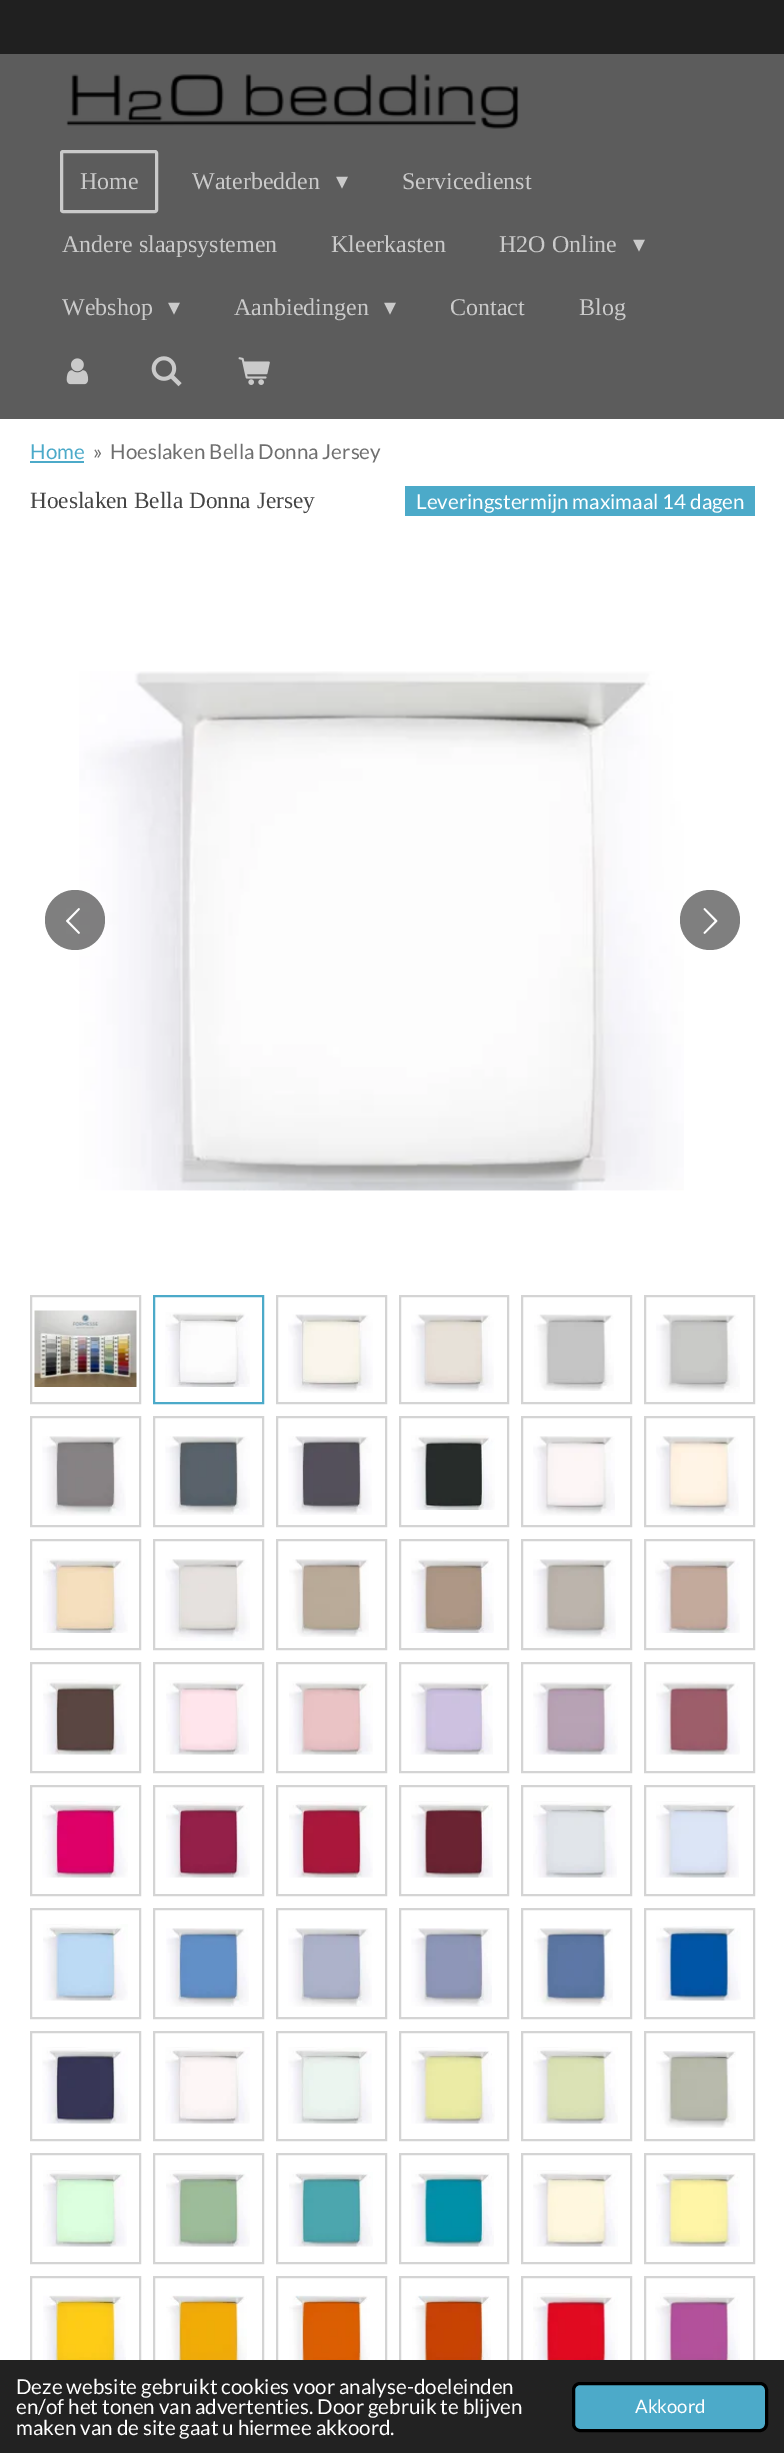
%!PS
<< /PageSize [784 2453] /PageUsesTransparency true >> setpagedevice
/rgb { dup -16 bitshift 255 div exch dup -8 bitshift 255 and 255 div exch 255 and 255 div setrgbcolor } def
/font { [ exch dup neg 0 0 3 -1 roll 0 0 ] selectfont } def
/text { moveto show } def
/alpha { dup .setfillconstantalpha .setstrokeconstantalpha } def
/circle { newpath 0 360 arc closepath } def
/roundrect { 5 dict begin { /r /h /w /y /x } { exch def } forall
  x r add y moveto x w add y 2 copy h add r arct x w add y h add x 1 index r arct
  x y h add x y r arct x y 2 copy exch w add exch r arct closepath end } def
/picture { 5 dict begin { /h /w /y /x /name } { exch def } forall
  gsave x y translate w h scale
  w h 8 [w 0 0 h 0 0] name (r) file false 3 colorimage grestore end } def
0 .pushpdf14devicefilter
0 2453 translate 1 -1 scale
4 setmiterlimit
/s1 { /LiberationSerif-Regular 24 font 16#CACACA rgb } def
/s2 { /DejaVuSans-Regular 24 font 16#CACACA rgb } def
/s3 { /Lato-Regular 20.55 font 16#4CAAC9 rgb } def
/s4 { /Lato-Regular 20.55 font 16#6F6F6F rgb } def
/s5 { /LiberationSerif-Regular 23.25 font 16#454545 rgb } def
/s6 { /Lato-Regular 20.55 font 16#FFFFFF rgb } def
/s7 { /Lato-Regular 18.5 font 16#FFFFFF rgb } def
16#FFFFFF rgb
0 0 784 2453 rectfill
16#5C5C5C rgb
0 54 784 365 rectfill
16#202020 rgb
0 0 784 54 rectfill
(pic1.raw) 66 74 453 55 picture
16#CACACA rgb
3 setlinewidth
61.5 151.5 95 60 1.5 roundrect stroke
s1
(Home) 80 189 text
(Waterbedden) 192 189 text
s2
(▾) 336 189 text
s1
(Servicedienst) 402 189 text
(Andere slaapsystemen) 62 252 text
(Kleerkasten) 331 252 text
(H2O Online) 499 252 text
s2
(▾) 633 252 text
s1
(Webshop) 62 315 text
s2
(▾) 168 315 text
s1
(Aanbiedingen) 234 315 text
s2
(▾) 384 315 text
s1
(Contact) 450 315 text
(Blog) 579 315 text
(pic2.raw) 66 358 23 27 picture
(pic3.raw) 151 356 31 31 picture
(pic4.raw) 238 357 32 28 picture
s3
(Home) 30 459 text
30 461 54 2 rectfill
s4
(») 93 459 text
(Hoeslaken Bella Donna Jersey) 110 459 text
s5
(Hoeslaken Bella Donna Jersey) 30 508 text
16#4CAAC9 rgb
405 486 350 30 rectfill
s6
(Leveringstermijn maximaal 14 dagen) 416 509 text
(pic5.raw) 79 671 605 520 picture
0.5 alpha
16#000000 rgb
75 920 30 circle fill
1 alpha
(pic6.raw) 66 908 14 26 picture
16#7F7F7F rgb
710 920 30 circle fill
(pic7.raw) 703 908 15 26 picture
16#D4D4D4 rgb
2 setlinewidth
31 1296 109 107 rectstroke
(pic8.raw) 34 1310 103 77 picture
16#4CAAC9 rgb
154 1296 109 107 rectstroke
(pic9.raw) 165 1312 85 75 picture
16#D4D4D4 rgb
277 1296 109 107 rectstroke
(pic10.raw) 288 1314 85 79 picture
400 1296 108 107 rectstroke
(pic11.raw) 411 1314 83 79 picture
522 1296 109 107 rectstroke
(pic12.raw) 534 1314 80 77 picture
645 1296 109 107 rectstroke
(pic13.raw) 656 1314 84 79 picture
31 1417 109 109 rectstroke
(pic14.raw) 42 1436 84 80 picture
154 1417 109 109 rectstroke
(pic15.raw) 165 1436 85 79 picture
277 1417 109 109 rectstroke
(pic16.raw) 288 1436 84 79 picture
400 1417 108 109 rectstroke
(pic17.raw) 411 1435 84 75 picture
522 1417 109 109 rectstroke
(pic18.raw) 533 1436 82 80 picture
645 1417 109 109 rectstroke
(pic19.raw) 656 1436 83 80 picture
31 1540 109 109 rectstroke
(pic20.raw) 43 1558 85 75 picture
154 1540 109 109 rectstroke
(pic21.raw) 165 1559 85 82 picture
277 1540 109 109 rectstroke
(pic22.raw) 289 1559 80 78 picture
400 1540 108 109 rectstroke
(pic23.raw) 411 1558 83 75 picture
522 1540 109 109 rectstroke
(pic24.raw) 533 1559 83 80 picture
645 1540 109 109 rectstroke
(pic25.raw) 655 1558 85 75 picture
31 1663 109 109 rectstroke
(pic26.raw) 43 1679 84 76 picture
154 1663 109 109 rectstroke
(pic27.raw) 166 1680 83 75 picture
277 1663 109 109 rectstroke
(pic28.raw) 289 1681 84 74 picture
400 1663 108 109 rectstroke
(pic29.raw) 411 1681 82 74 picture
522 1663 109 109 rectstroke
(pic30.raw) 533 1682 85 73 picture
645 1663 109 109 rectstroke
(pic31.raw) 656 1681 84 74 picture
31 1786 109 109 rectstroke
(pic32.raw) 42 1801 86 77 picture
154 1786 109 109 rectstroke
(pic33.raw) 166 1801 84 77 picture
277 1786 109 109 rectstroke
(pic34.raw) 289 1801 84 77 picture
400 1786 108 109 rectstroke
(pic35.raw) 411 1801 82 77 picture
522 1786 109 109 rectstroke
(pic36.raw) 533 1801 84 77 picture
645 1786 109 109 rectstroke
(pic37.raw) 656 1801 83 77 picture
31 1909 109 109 rectstroke
(pic38.raw) 43 1924 85 77 picture
154 1909 109 109 rectstroke
(pic39.raw) 166 1928 83 79 picture
277 1909 109 109 rectstroke
(pic40.raw) 288 1928 84 79 picture
400 1909 108 109 rectstroke
(pic41.raw) 411 1928 81 79 picture
522 1909 109 109 rectstroke
(pic42.raw) 534 1928 79 79 picture
645 1909 109 109 rectstroke
(pic43.raw) 656 1926 85 75 picture
31 2032 109 108 rectstroke
(pic44.raw) 42 2047 86 77 picture
154 2032 109 108 rectstroke
(pic45.raw) 165 2047 85 77 picture
277 2032 109 108 rectstroke
(pic46.raw) 288 2047 84 77 picture
400 2032 108 108 rectstroke
(pic47.raw) 411 2047 84 77 picture
522 2032 109 108 rectstroke
(pic48.raw) 533 2047 85 77 picture
645 2032 109 108 rectstroke
(pic49.raw) 656 2051 80 77 picture
31 2154 109 109 rectstroke
(pic50.raw) 43 2170 84 77 picture
154 2154 109 109 rectstroke
(pic51.raw) 166 2170 84 77 picture
277 2154 109 109 rectstroke
(pic52.raw) 289 2172 84 75 picture
400 2154 108 109 rectstroke
(pic53.raw) 411 2170 83 77 picture
522 2154 109 109 rectstroke
(pic54.raw) 533 2170 85 77 picture
645 2154 109 109 rectstroke
(pic55.raw) 656 2170 84 77 picture
31 2277 109 109 rectstroke
(pic56.raw) 43 2295 83 65 picture
154 2277 109 109 rectstroke
(pic57.raw) 166 2295 81 65 picture
277 2277 109 109 rectstroke
(pic58.raw) 289 2295 81 65 picture
400 2277 108 109 rectstroke
(pic59.raw) 412 2295 79 65 picture
522 2277 109 109 rectstroke
(pic60.raw) 533 2293 85 67 picture
645 2277 109 109 rectstroke
(pic61.raw) 655 2293 85 67 picture
16#222222 rgb
0 2360 784 93 rectfill
s6
(Deze website gebruikt cookies voor analyse-doeleinden) 16 2394 text
(en/of het tonen van advertenties. Door gebruik te blijven) 16 2414 text
(maken van de site gaat u hiermee akkoord.) 16 2435 text
16#4CAAC9 rgb
573.5 2383.5 193 47 6.5 roundrect gsave fill grestore
16#000000 rgb
3 setlinewidth
stroke
s7
(Akkoord) 635 2413 text
.poppdf14devicefilter showpage
